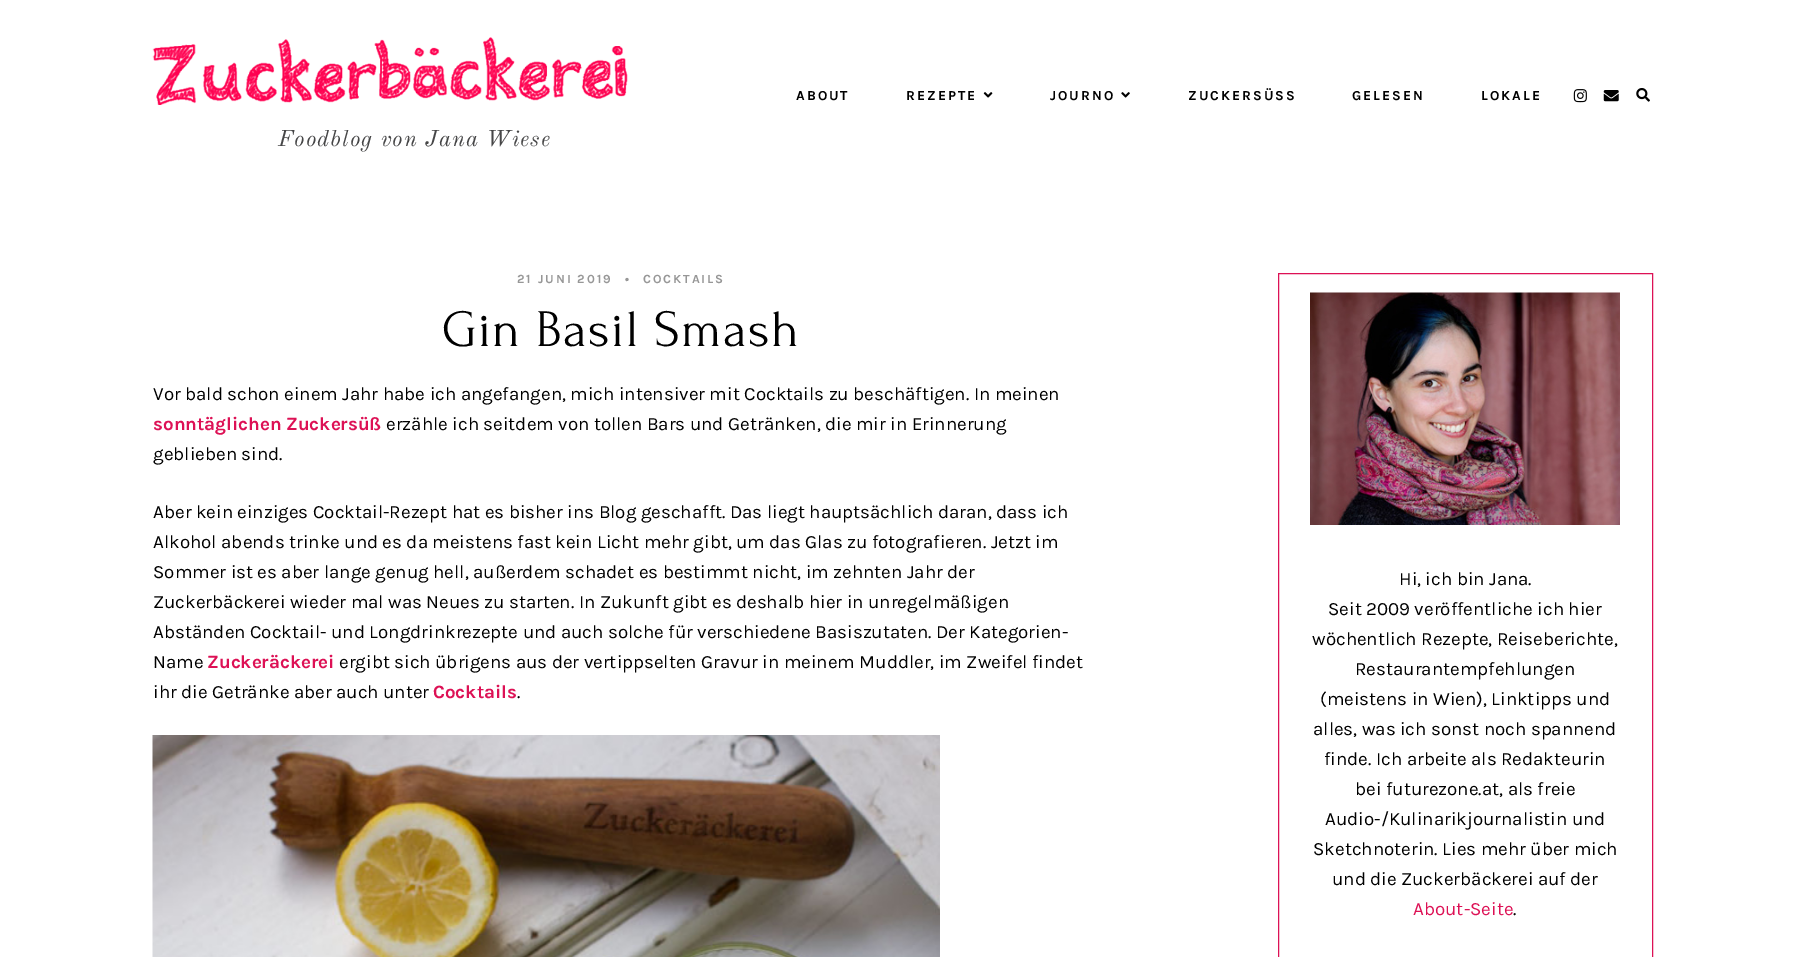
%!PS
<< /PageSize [1804 957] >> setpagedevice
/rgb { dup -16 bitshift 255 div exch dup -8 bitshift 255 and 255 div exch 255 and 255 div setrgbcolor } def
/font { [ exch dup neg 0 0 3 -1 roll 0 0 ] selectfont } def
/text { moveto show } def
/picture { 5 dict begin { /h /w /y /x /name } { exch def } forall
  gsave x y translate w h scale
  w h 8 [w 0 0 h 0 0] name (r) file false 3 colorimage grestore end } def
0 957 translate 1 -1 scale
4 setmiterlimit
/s1 { /Karla-Regular 18.75 font 16#000000 rgb } def
/s2 { /Karla-Bold 18.75 font 16#DD1155 rgb } def
/s3 { /Karla-Regular 18.75 font 16#DD1155 rgb } def
16#FFFFFF rgb
0 0 1804 957 rectfill
/Karla-Bold 13.75 font
16#000000 rgb
796 100 moveto 2 0 (ABOUT) ashow
906 100 moveto 2 0 (REZEPTE) ashow
(pic1.raw) 983 92 10 6 picture
1050 100 moveto 2 0 (JOURNO) ashow
(pic2.raw) 1121 92 9 6 picture
1188 100 moveto 2 0 (ZUCKERSÜSS) ashow
1352 100 moveto 2 0 (GELESEN) ashow
1481 100 moveto 2 0 (LOKALE) ashow
(pic3.raw) 1573 89 14 14 picture
(pic4.raw) 1603 90 16 12 picture
(pic5.raw) 1636 88 14 14 picture
(pic6.raw) 152 37 476 68 picture
/OldStandardTT-Italic 22.5 font
16#464647 rgb
278 146 moveto 1.1 0 (Foodblog von Jana Wiese) ashow
/Karla-Bold 12.5 font
16#979797 rgb
517 283 moveto 1.9 0 (21 JUNI 2019) ashow
625 283 moveto 1.9 0 (•) ashow
643 283 moveto 1.9 0 (COCKTAILS) ashow
/Forum-Regular 52.5 font
16#000000 rgb
442 346 moveto 1.25 0 (Gin Basil Smash) ashow
s1
(Vor bald schon einem Jahr habe ich angefangen, mich intensiver mit Cocktails zu beschäftigen. In meinen) 153 400 text
s2
(sonntäglichen Zuckersüß) 153 430 text
s1
(erzähle ich seitdem von tollen Bars und Getränken, die mir in Erinnerung) 386 430 text
(geblieben sind.) 153 460 text
(Aber kein einziges Cocktail-Rezept hat es bisher ins Blog geschafft. Das liegt hauptsächlich daran, dass ich) 153 518 text
(Alkohol abends trinke und es da meistens fast kein Licht mehr gibt, um das Glas zu fotografieren. Jetzt im) 153 548 text
(Sommer ist es aber lange genug hell, außerdem schadet es bestimmt nicht, im zehnten Jahr der) 153 578 text
(Zuckerbäckerei wieder mal was Neues zu starten. In Zukunft gibt es deshalb hier in unregelmäßigen) 153 608 text
(Abständen Cocktail- und Longdrinkrezepte und auch solche für verschiedene Basiszutaten. Der Kategorien-) 153 638 text
(Name) 153 668 text
s2
(Zuckeräckerei) 207 668 text
s1
(ergibt sich übrigens aus der vertippselten Gravur in meinem Muddler, im Zweifel findet) 339 668 text
(ihr die Getränke aber auch unter) 153 698 text
s2
(Cocktails) 433 698 text
s1
(.) 517 698 text
(pic7.raw) 152 735 788 222 picture
16#DD1155 rgb
1278.5 273.5 374 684 rectstroke
(pic8.raw) 1310 292 310 233 picture
s1
(Hi, ich bin Jana.) 1399 585 text
(Seit 2009 veröffentliche ich hier) 1328 615 text
(wöchentlich Rezepte, Reiseberichte,) 1312 645 text
(Restaurantempfehlungen) 1355 675 text
(\(meistens in Wien\), Linktipps und) 1320 705 text
(alles, was ich sonst noch spannend) 1313 735 text
(finde. Ich arbeite als Redakteurin) 1324 765 text
(bei futurezone.at, als freie) 1355 795 text
(Audio-/Kulinarikjournalistin und) 1325 825 text
(Sketchnoterin. Lies mehr über mich) 1313 855 text
(und die Zuckerbäckerei auf der) 1332 885 text
s3
(About-Seite) 1413 915 text
s1
(.) 1513 915 text
showpage
